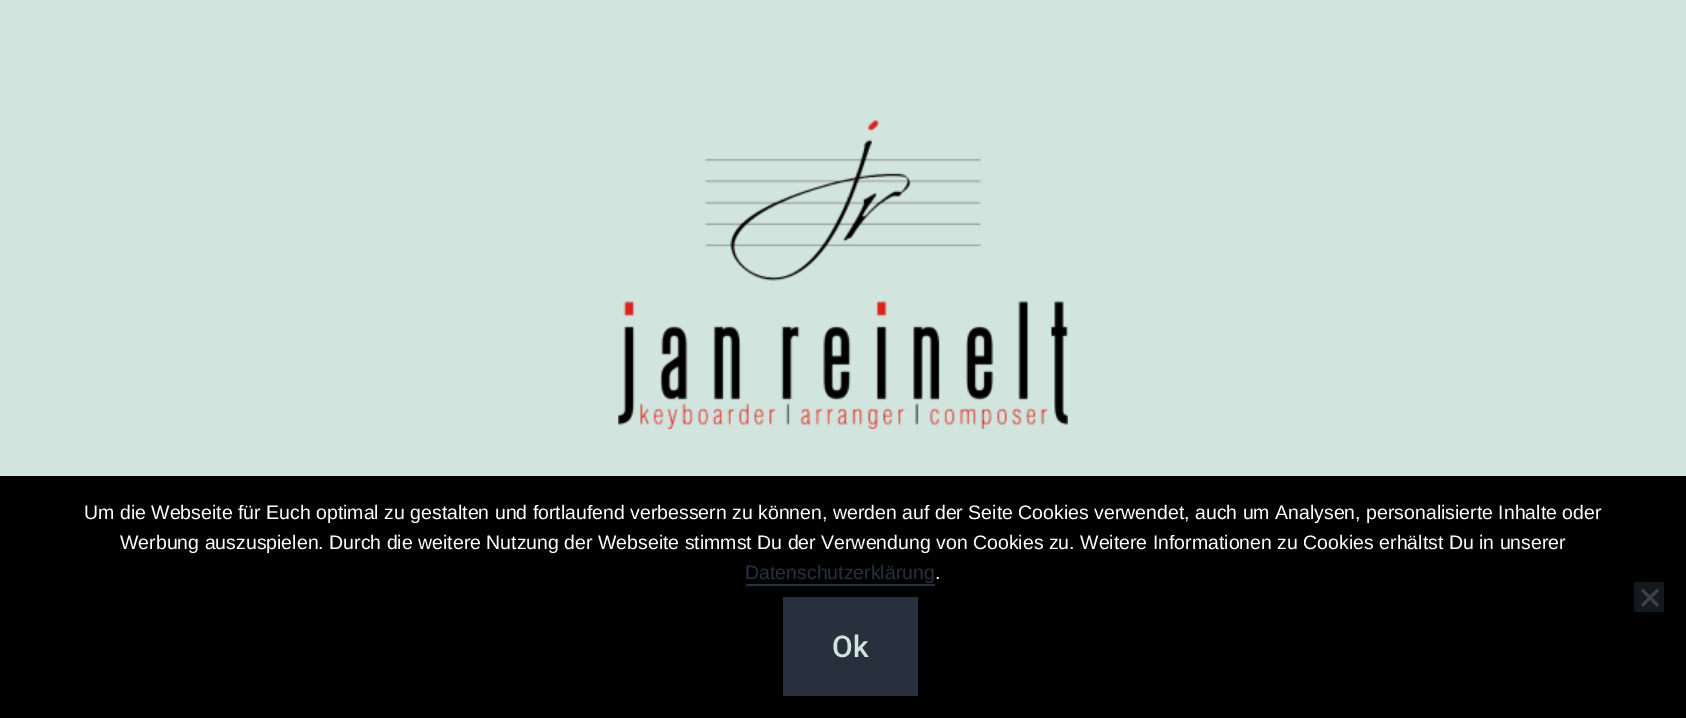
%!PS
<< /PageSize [1686 718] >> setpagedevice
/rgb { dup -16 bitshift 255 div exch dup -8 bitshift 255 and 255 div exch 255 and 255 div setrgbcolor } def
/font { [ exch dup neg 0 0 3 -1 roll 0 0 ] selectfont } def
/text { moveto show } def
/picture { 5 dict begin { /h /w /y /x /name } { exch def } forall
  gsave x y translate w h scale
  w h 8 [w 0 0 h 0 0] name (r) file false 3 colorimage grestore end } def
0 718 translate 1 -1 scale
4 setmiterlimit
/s1 { /LiberationSans-Regular 19.5 font 16#FFFFFF rgb } def
/s2 { /LiberationSans-Regular 19.5 font 16#28303D rgb } def
/s3 { /Roboto-Medium 30 font 16#D1E4DD rgb } def
16#D1E4DD rgb
0 0 1686 718 rectfill
(pic1.raw) 618 120 450 309 picture
16#000000 rgb
0 476 1686 242 rectfill
s1
(Um die Webseite für Euch optimal zu gestalten und fortlaufend verbessern zu können, werden auf der Seite Cookies verwendet, auch um Analysen, personalisierte Inhalte oder) 84 519 text
(Werbung auszuspielen. Durch die weitere Nutzung der Webseite stimmst Du der Verwendung von Cookies zu. Weitere Informationen zu Cookies erhältst Du in unserer) 120 549 text
s2
(Datenschutzerklärung) 745 579 text
746 584 189 2 rectfill
s1
(.) 935 579 text
16#14181F rgb
1634 582 30 30 rectfill
16#404040 rgb
1657 588.5 moveto 1659 591 lineto 1643 607 lineto 1641 604.5 lineto closepath fill
1641 591 moveto 1643 588.5 lineto 1659 604.5 lineto 1657 607 lineto closepath fill
16#28303D rgb
783 597 135 99 rectfill
s3
(Ok) 832 657 text
showpage
